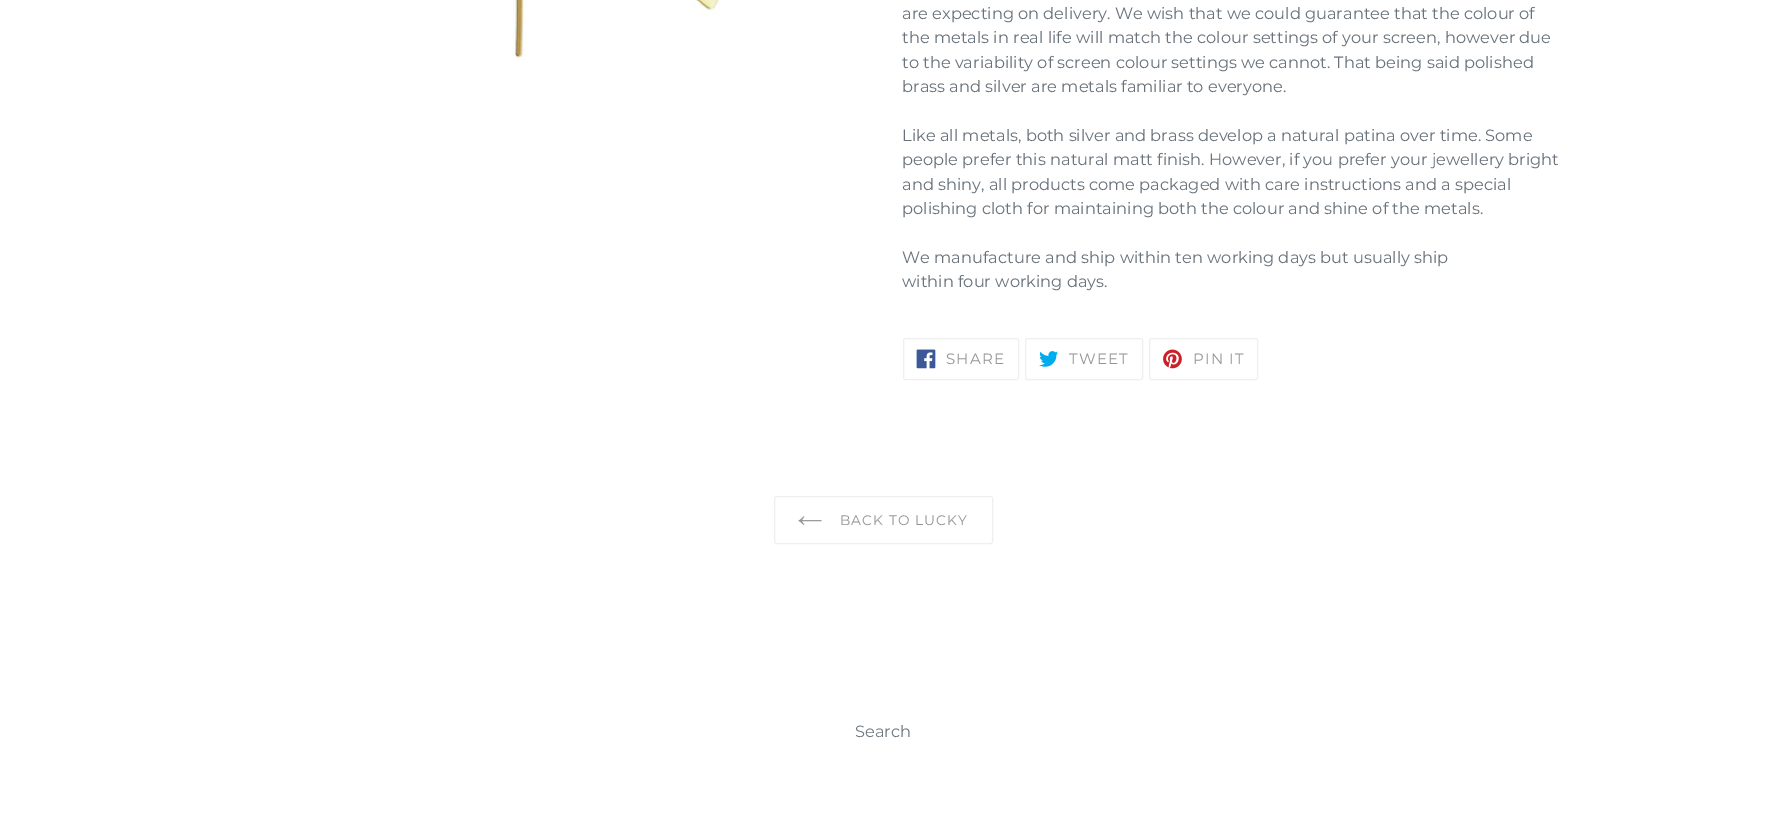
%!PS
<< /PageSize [1766 817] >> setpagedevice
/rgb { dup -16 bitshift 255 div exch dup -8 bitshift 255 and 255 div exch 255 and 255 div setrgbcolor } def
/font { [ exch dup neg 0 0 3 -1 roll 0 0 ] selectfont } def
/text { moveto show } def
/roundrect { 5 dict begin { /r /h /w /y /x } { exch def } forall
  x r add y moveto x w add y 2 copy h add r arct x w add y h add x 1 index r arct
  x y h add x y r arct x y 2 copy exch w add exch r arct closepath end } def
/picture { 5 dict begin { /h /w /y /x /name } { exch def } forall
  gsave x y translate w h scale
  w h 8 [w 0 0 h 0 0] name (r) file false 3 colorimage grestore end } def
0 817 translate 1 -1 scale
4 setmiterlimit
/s1 { /Montserrat-Thin 16.25 font 16#69727B rgb } def
/s2 { /Montserrat-Thin 16.25 font 16#707981 rgb } def
16#FFFFFF rgb
0 0 1766 817 rectfill
(pic1.raw) 513 0 207 60 picture
s1
(are expecting on delivery. We wish that we could guarantee that the colour of) 902 19 text
(the metals in real life will match the colour settings of your screen, however due) 902 43 text
(to the variability of screen colour settings we cannot. That being said polished) 902 68 text
(brass and silver are metals familiar to everyone.) 902 92 text
(Like all metals, both silver and brass develop a natural patina over time. Some) 902 141 text
(people prefer this natural matt finish. However, if you prefer your jewellery bright) 902 165 text
(and shiny, all products come packaged with care instructions and a special) 902 190 text
(polishing cloth for maintaining both the colour and shine of the metals.) 902 214 text
(We manufacture and ship within ten working days but usually ship) 902 263 text
(within four working days.) 902 287 text
16#F0EFEF rgb
903.5 338.5 115 41 2 roundrect stroke
(pic2.raw) 916 349 20 20 picture
/Montserrat-Thin 15 font
16#959494 rgb
946 364 moveto 1.25 0 (SHARE) ashow
16#F0EFEF rgb
1025.5 338.5 117 41 2 roundrect stroke
(pic3.raw) 1039 351 20 16 picture
16#959494 rgb
1069 364 moveto 1.25 0 (TWEET) ashow
16#F0EFEF rgb
1149.5 338.5 108 41 2 roundrect stroke
(pic4.raw) 1163 349 19 20 picture
16#959494 rgb
1193 364 moveto 1.25 0 (PIN IT) ashow
16#F0EFEF rgb
774.5 496.5 218 47 2 roundrect stroke
(pic5.raw) 798 516 24 9 picture
/Montserrat-Thin 13.75 font
16#959494 rgb
840 525 moveto 1.1 0 (BACK TO LUCKY) ashow
s2
(Search) 855 737 text
showpage
